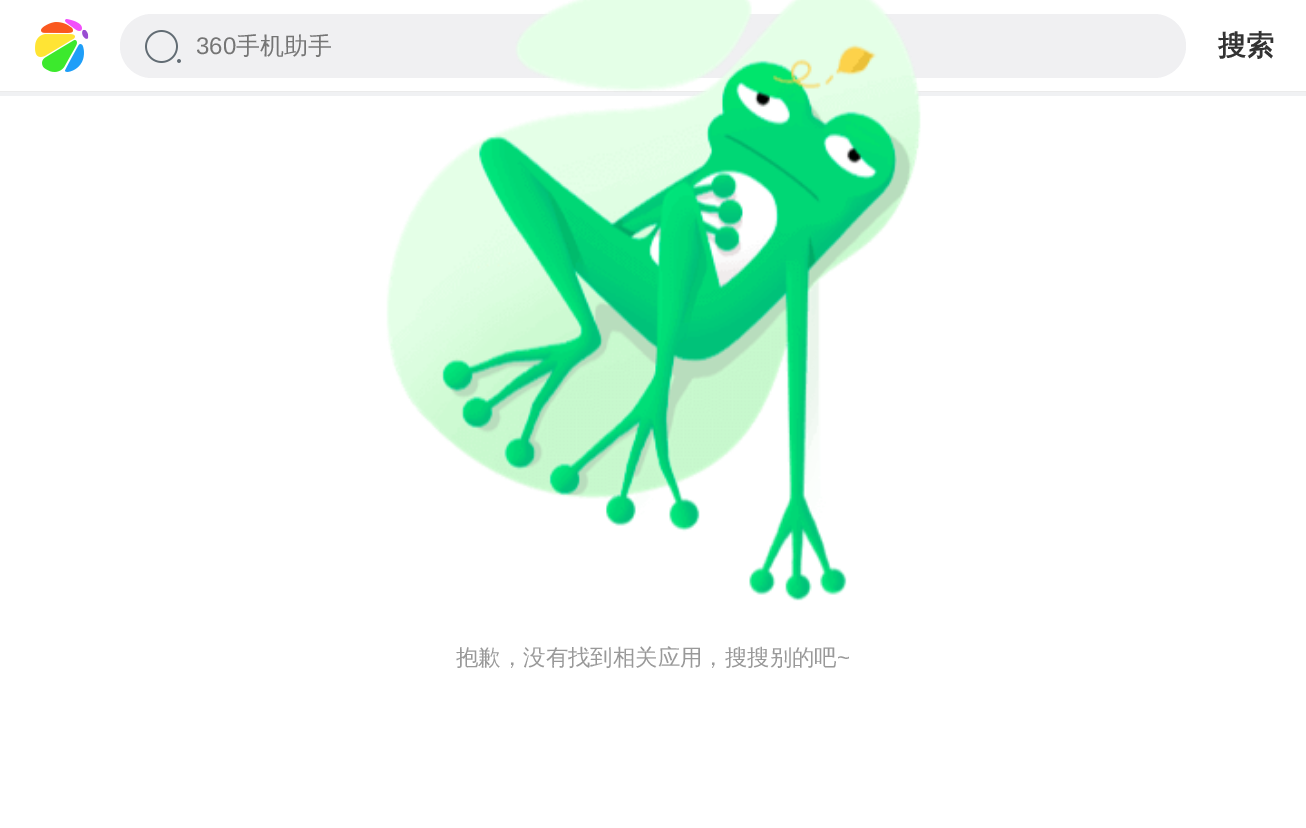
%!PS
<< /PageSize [1306 828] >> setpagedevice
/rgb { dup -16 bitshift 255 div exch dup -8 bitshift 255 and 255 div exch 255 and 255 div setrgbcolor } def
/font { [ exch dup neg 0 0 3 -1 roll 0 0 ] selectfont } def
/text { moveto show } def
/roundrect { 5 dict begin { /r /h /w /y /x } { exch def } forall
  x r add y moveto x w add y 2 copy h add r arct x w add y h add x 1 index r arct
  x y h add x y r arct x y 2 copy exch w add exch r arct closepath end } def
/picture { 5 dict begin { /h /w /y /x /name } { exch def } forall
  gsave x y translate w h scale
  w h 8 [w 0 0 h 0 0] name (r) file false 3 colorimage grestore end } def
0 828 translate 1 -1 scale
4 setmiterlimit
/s1 { /LiberationSans-Regular 24 font 16#757575 rgb } def
/s2 { /WenQuanYiZenHei-Medium 24 font 16#757575 rgb } def
/s3 { /WenQuanYiZenHei-Bold 28 font 16#333333 rgb } def
/s4 { /WenQuanYiZenHei-Medium 22.4 font 16#999999 rgb } def
/s5 { /LiberationSans-Regular 22.4 font 16#999999 rgb } def
16#F0F1F3 rgb
0 0 1306 828 rectfill
16#FFFFFF rgb
0 0 1306 91 rectfill
16#EBEBEB rgb
0 91 1306 1 rectfill
(pic1.raw) 35 19 54 53 picture
16#F0F0F2 rgb
120 14 1066 64 32 roundrect fill
(pic2.raw) 145 30 36 33 picture
s1
(360) 196 54 text
s2
(手机助手) 236 54 text
s3
(搜索) 1218 55 text
16#FFFFFF rgb
0 96 1306 732 rectfill
(pic3.raw) 386 0 535 601 picture
s4
(抱歉，没有找到相关应用，搜搜别的吧) 456 665 text
s5
(~) 837 665 text
showpage
